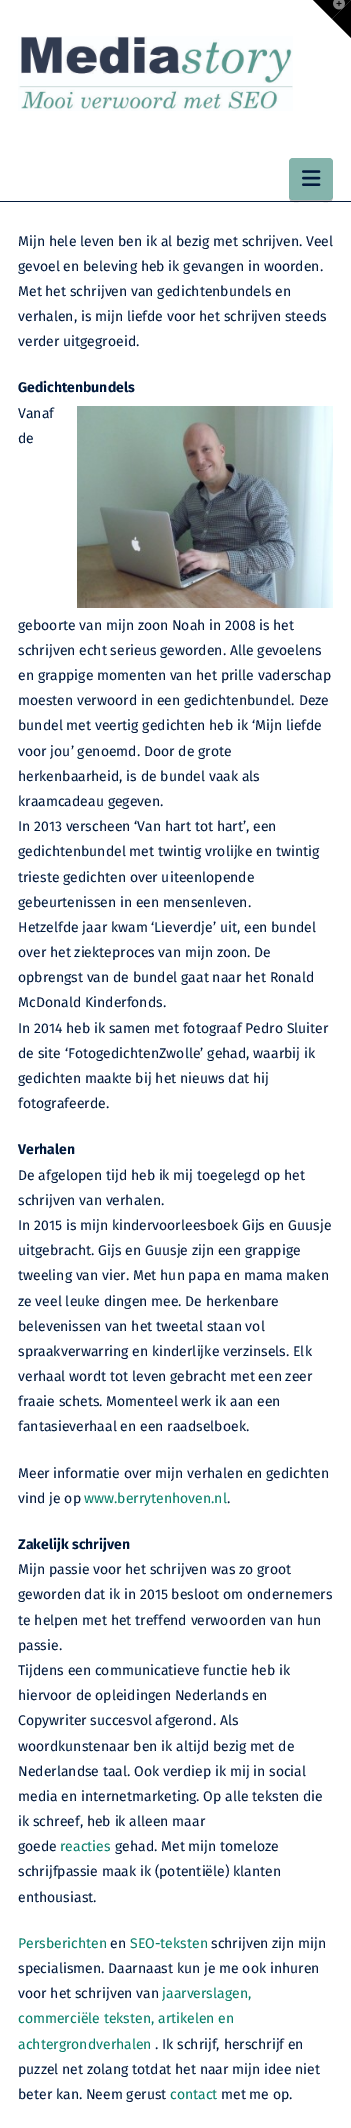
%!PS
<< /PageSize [351 2128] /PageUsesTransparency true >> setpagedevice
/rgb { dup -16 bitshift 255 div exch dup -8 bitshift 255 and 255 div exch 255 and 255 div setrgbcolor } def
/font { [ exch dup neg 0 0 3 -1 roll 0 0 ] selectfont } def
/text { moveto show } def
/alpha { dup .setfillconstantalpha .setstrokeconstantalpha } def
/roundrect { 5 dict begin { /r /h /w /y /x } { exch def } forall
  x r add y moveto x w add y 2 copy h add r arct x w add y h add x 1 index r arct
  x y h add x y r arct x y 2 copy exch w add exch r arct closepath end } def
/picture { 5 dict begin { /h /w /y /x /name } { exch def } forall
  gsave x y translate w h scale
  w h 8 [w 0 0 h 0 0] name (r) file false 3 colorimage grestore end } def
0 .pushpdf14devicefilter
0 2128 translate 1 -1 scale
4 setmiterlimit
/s1 { /FiraSans-Regular 14 font 16#021A3D rgb } def
/s2 { /FiraSans-Bold 14 font 16#021A3D rgb } def
/s3 { /FiraSans-Regular 14 font 16#077D69 rgb } def
16#FFFFFF rgb
0 0 351 2128 rectfill
16#000000 rgb
313 0 moveto 351 0 lineto 332 19 lineto closepath fill
351 0 moveto 351 38 lineto 332 19 lineto closepath fill
(pic1.raw) 333 0 12 10 picture
16#021A3D rgb
0 201 351 1 rectfill
(pic2.raw) 18 36 275 75 picture
0.25 alpha
16#000000 rgb
289 196 moveto 289 203 293 202 299 202 curveto 323 202 lineto 329 202 333 203 333 196 curveto 333 198 331 200 329 200 curveto 293 200 lineto 291 200 289 198 289 196 curveto closepath fill
0.76 alpha
16#5E9C92 rgb
289 158 44 42 4 roundrect fill
1 alpha
(pic3.raw) 302 170 19 16 picture
s1
(Mijn hele leven ben ik al bezig met schrijven. Veel) 18 246 text
(gevoel en beleving heb ik gevangen in woorden.) 18 271 text
(Met het schrijven van gedichtenbundels en) 18 296 text
(verhalen, is mijn liefde voor het schrijven steeds) 18 321 text
(verder uitgegroeid.) 18 346 text
s2
(Gedichtenbundels) 18 392 text
s1
(Vanaf) 18 418 text
(pic4.raw) 77 406 256 202 picture
(de) 18 443 text
(geboorte van mijn zoon Noah in 2008 is het) 18 630 text
(schrijven echt serieus geworden. Alle gevoelens) 18 655 text
(en grappige momenten van het prille vaderschap) 18 680 text
(moesten verwoord in een gedichtenbundel. Deze) 18 705 text
(bundel met veertig gedichten heb ik ‘Mijn liefde) 18 730 text
(voor jou’ genoemd. Door de grote) 18 756 text
(herkenbaarheid, is de bundel vaak als) 18 781 text
(kraamcadeau gegeven.) 18 806 text
(In 2013 verscheen ‘Van hart tot hart’, een) 18 831 text
(gedichtenbundel met twintig vrolijke en twintig) 18 856 text
(trieste gedichten over uiteenlopende) 18 882 text
(gebeurtenissen in een mensenleven.) 18 907 text
(Hetzelfde jaar kwam ‘Lieverdje’ uit, een bundel) 18 932 text
(over het ziekteproces van mijn zoon. De) 18 957 text
(opbrengst van de bundel gaat naar het Ronald) 18 982 text
(McDonald Kinderfonds.) 18 1007 text
(In 2014 heb ik samen met fotograaf Pedro Sluiter) 18 1033 text
(de site ‘FotogedichtenZwolle’ gehad, waarbij ik) 18 1058 text
(gedichten maakte bij het nieuws dat hij) 18 1083 text
(fotografeerde.) 18 1108 text
s2
(Verhalen) 18 1154 text
s1
(De afgelopen tijd heb ik mij toegelegd op het) 18 1180 text
(schrijven van verhalen.) 18 1205 text
(In 2015 is mijn kindervoorleesboek Gijs en Guusje) 18 1230 text
(uitgebracht. Gijs en Guusje zijn een grappige) 18 1255 text
(tweeling van vier. Met hun papa en mama maken) 18 1280 text
(ze veel leuke dingen mee. De herkenbare) 18 1306 text
(belevenissen van het tweetal staan vol) 18 1331 text
(spraakverwarring en kinderlijke verzinsels. Elk) 18 1356 text
(verhaal wordt tot leven gebracht met een zeer) 18 1381 text
(fraaie schets. Momenteel werk ik aan een) 18 1406 text
(fantasieverhaal en een raadselboek.) 18 1431 text
(Meer informatie over mijn verhalen en gedichten) 18 1478 text
(vind je op) 18 1503 text
s3
(www.berrytenhoven.nl) 84 1503 text
s1
(.) 227 1503 text
s2
(Zakelijk schrijven) 18 1549 text
s1
(Mijn passie voor het schrijven was zo groot) 18 1574 text
(geworden dat ik in 2015 besloot om ondernemers) 18 1599 text
(te helpen met het treffend verwoorden van hun) 18 1625 text
(passie.) 18 1650 text
(Tijdens een communicatieve functie heb ik) 18 1675 text
(hiervoor de opleidingen Nederlands en) 18 1700 text
(Copywriter succesvol afgerond. Als) 18 1725 text
(woordkunstenaar ben ik altijd bezig met de) 18 1751 text
(Nederlandse taal. Ook verdiep ik mij in social) 18 1776 text
(media en internetmarketing. Op alle teksten die) 18 1801 text
(ik schreef, heb ik alleen maar) 18 1826 text
(goede) 18 1851 text
s3
(reacties) 60 1851 text
s1
(gehad. Met mijn tomeloze) 115 1851 text
(schrijfpassie maak ik \(potentiële\) klanten) 18 1876 text
(enthousiast.) 18 1902 text
s3
(Persberichten) 18 1948 text
s1
(en) 110 1948 text
s3
(SEO-teksten) 130 1948 text
s1
(schrijven zijn mijn) 211 1948 text
(specialismen. Daarnaast kun je me ook inhuren) 18 1973 text
(voor het schrijven van) 18 1998 text
s3
(jaarverslagen,) 162 1998 text
(commerciële teksten, artikelen en) 18 2023 text
(achtergrondverhalen) 18 2049 text
s1
(. Ik schrijf, herschrijf en) 155 2049 text
(puzzel net zolang totdat het naar mijn idee niet) 18 2074 text
(beter kan. Neem gerust) 18 2099 text
s3
(contact) 170 2099 text
s1
(met me op.) 221 2099 text
.poppdf14devicefilter showpage
